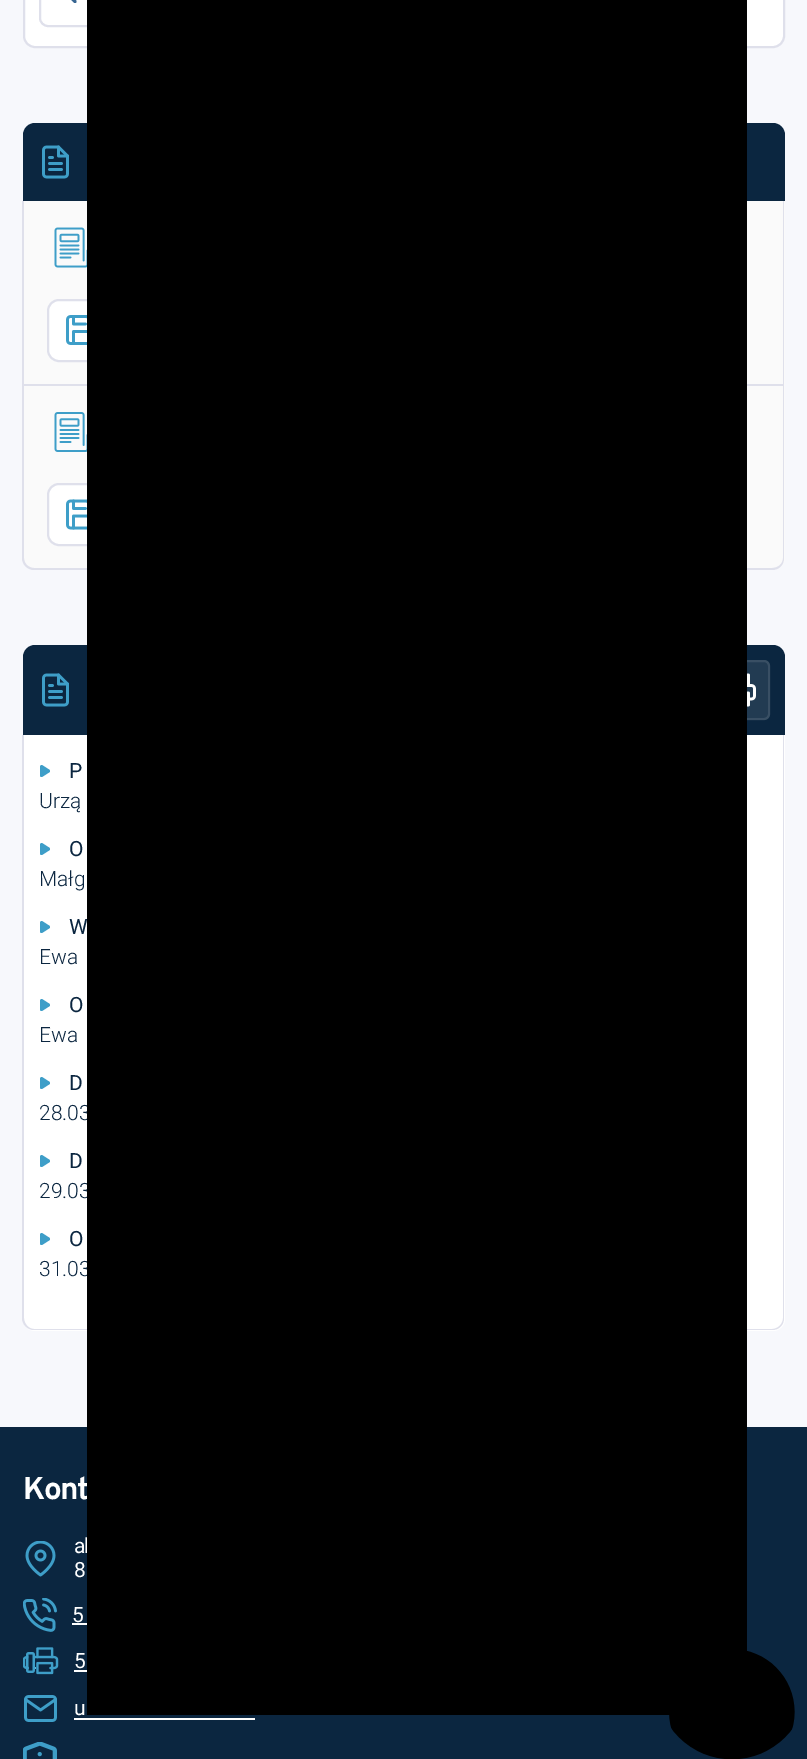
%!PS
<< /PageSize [807 1759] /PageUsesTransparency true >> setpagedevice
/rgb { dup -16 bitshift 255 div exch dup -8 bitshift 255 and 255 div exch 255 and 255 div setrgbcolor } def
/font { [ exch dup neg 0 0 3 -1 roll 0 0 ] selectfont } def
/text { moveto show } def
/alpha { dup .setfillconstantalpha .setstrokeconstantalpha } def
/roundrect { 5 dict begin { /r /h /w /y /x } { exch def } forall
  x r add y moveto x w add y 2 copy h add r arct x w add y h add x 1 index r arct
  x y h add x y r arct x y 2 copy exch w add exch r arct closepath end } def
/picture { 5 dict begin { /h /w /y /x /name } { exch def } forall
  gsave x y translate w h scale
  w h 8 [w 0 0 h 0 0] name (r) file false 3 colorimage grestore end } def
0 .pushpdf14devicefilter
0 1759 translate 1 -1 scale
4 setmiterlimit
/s1 { /Roboto-Regular 21 font 16#0B2640 rgb } def
/s2 { /Roboto-Light 21 font 16#0B2640 rgb } def
16#F7F8FC rgb
0 0 807 1759 rectfill
16#FFFFFF rgb
24 -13 760 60 11 roundrect gsave fill grestore
16#DFE0EB rgb
2 setlinewidth
stroke
40 -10 70 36 8 roundrect stroke
16#386692 rgb
3 setlinewidth
1 setlinecap
1 setlinejoin
75 1.5 moveto 64.5 -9 lineto 75 -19.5 lineto stroke
16#0B2640 rgb
35 123 moveto 773 123 lineto 779.5 123 785 128.5 785 135 curveto 785 201 lineto 23 201 lineto 23 135 lineto 23 128.5 28.5 123 35 123 curveto closepath fill
(pic1.raw) 42 145 27 34 picture
16#FAFAFA rgb
23 201 moveto 785 201 lineto 785 558 lineto 785 564.5 779.5 570 773 570 curveto 35 570 lineto 28.5 570 23 564.5 23 558 curveto closepath fill
16#DFE0EB rgb
22 201 moveto 784 201 lineto 784 558 lineto 784 565 779 570 772 570 curveto 34 570 lineto 28 570 22 565 22 558 curveto closepath 24 201 moveto 783 201 lineto 783 558 lineto 783 564 778 568 772 568 curveto 34 568 lineto 29 568 24 564 24 558 curveto closepath eofill
24 384 759 2 rectfill
(pic2.raw) 54 227 33 41 picture
16#FFFFFF rgb
48 300 190 61 11 roundrect gsave fill grestore
16#DFE0EB rgb
2 setlinewidth
0 setlinecap
0 setlinejoin
stroke
(pic3.raw) 66 315 21 30 picture
(pic4.raw) 54 412 33 40 picture
16#FFFFFF rgb
48 484 190 61 11 roundrect gsave fill grestore
16#DFE0EB rgb
stroke
(pic5.raw) 66 499 21 31 picture
16#0B2640 rgb
35 645 moveto 773 645 lineto 779.5 645 785 650.5 785 657 curveto 785 735 lineto 23 735 lineto 23 657 lineto 23 650.5 28.5 645 35 645 curveto closepath fill
(pic1.raw) 42 673 27 34 picture
16#223B52 rgb
710 660 60 60 6 roundrect fill
0.1 alpha
16#FFFFFF rgb
711 661 58 58 5 roundrect stroke
1 alpha
(pic6.raw) 746 673 10 34 picture
23 735 moveto 785 735 lineto 785 1319 lineto 785 1325.5 779.5 1331 773 1331 curveto 35 1331 lineto 28.5 1331 23 1325.5 23 1319 curveto closepath fill
16#DFE0EB rgb
22 735 moveto 784 735 lineto 784 1318 lineto 784 1325 779 1330 772 1330 curveto 34 1330 lineto 28 1330 22 1325 22 1318 curveto closepath 24 735 moveto 783 735 lineto 783 1318 lineto 783 1324 778 1329 772 1329 curveto 34 1329 lineto 29 1329 24 1324 24 1318 curveto closepath eofill
16#3E9EC8 rgb
3 setlinewidth
1 setlinecap
1 setlinejoin
41.5 766.5 moveto 48.5 771 lineto 41.5 775.5 lineto closepath stroke
41.5 775 moveto 41.5 766.5 lineto 48.5 771 lineto closepath fill
s1
(P) 69 778 text
s2
(Urzą) 39 808 text
16#3E9EC8 rgb
41.5 844.5 moveto 48.5 849 lineto 41.5 853.5 lineto closepath stroke
41.5 853 moveto 41.5 844.5 lineto 48.5 849 lineto closepath fill
s1
(O) 69 856 text
s2
(Małg) 39 886 text
16#3E9EC8 rgb
41.5 922.5 moveto 48.5 927 lineto 41.5 931.5 lineto closepath stroke
41.5 931 moveto 41.5 922.5 lineto 48.5 927 lineto closepath fill
s1
(W) 69 934 text
s2
(Ewa) 39 964 text
16#3E9EC8 rgb
41.5 1000.5 moveto 48.5 1005 lineto 41.5 1009.5 lineto closepath stroke
41.5 1009 moveto 41.5 1000.5 lineto 48.5 1005 lineto closepath fill
s1
(O) 69 1012 text
s2
(Ewa) 39 1042 text
16#3E9EC8 rgb
41.5 1078.5 moveto 48.5 1083 lineto 41.5 1087.5 lineto closepath stroke
41.5 1087 moveto 41.5 1078.5 lineto 48.5 1083 lineto closepath fill
s1
(D) 69 1090 text
s2
(28.03) 39 1120 text
16#3E9EC8 rgb
41.5 1156.5 moveto 48.5 1161 lineto 41.5 1165.5 lineto closepath stroke
41.5 1165 moveto 41.5 1156.5 lineto 48.5 1161 lineto closepath fill
s1
(D) 69 1168 text
s2
(29.03) 39 1198 text
16#3E9EC8 rgb
41.5 1234.5 moveto 48.5 1239 lineto 41.5 1243.5 lineto closepath stroke
41.5 1243 moveto 41.5 1234.5 lineto 48.5 1239 lineto closepath fill
s1
(O) 69 1246 text
s2
(31.03) 39 1276 text
0 1427 807 332 rectfill
/Overpass-Bold 31.5 font
16#FFFFFF rgb
23 1499 moveto -1.5 0 (Kont) ashow
(pic7.raw) 25 1541 31 36 picture
/Roboto-Regular 21 font
74 1553 moveto -1 0 (al) ashow
74 1577 moveto -1 0 (8) ashow
(pic8.raw) 23 1598 34 34 picture
72 1622 moveto -1 0 (5) ashow
72 1623 15 2 rectfill
(pic9.raw) 23 1647 36 28 picture
74 1668 moveto -1 0 (5) ashow
74 1670 13 2 rectfill
(pic10.raw) 24 1695 33 27 picture
74 1715 moveto -1 0 (u) ashow
74 1718 181 2 rectfill
(pic11.raw) 23 1742 34 17 picture
(pic12.raw) 87 0 660 1715 picture
(pic13.raw) 669 1651 126 108 picture
.poppdf14devicefilter showpage
